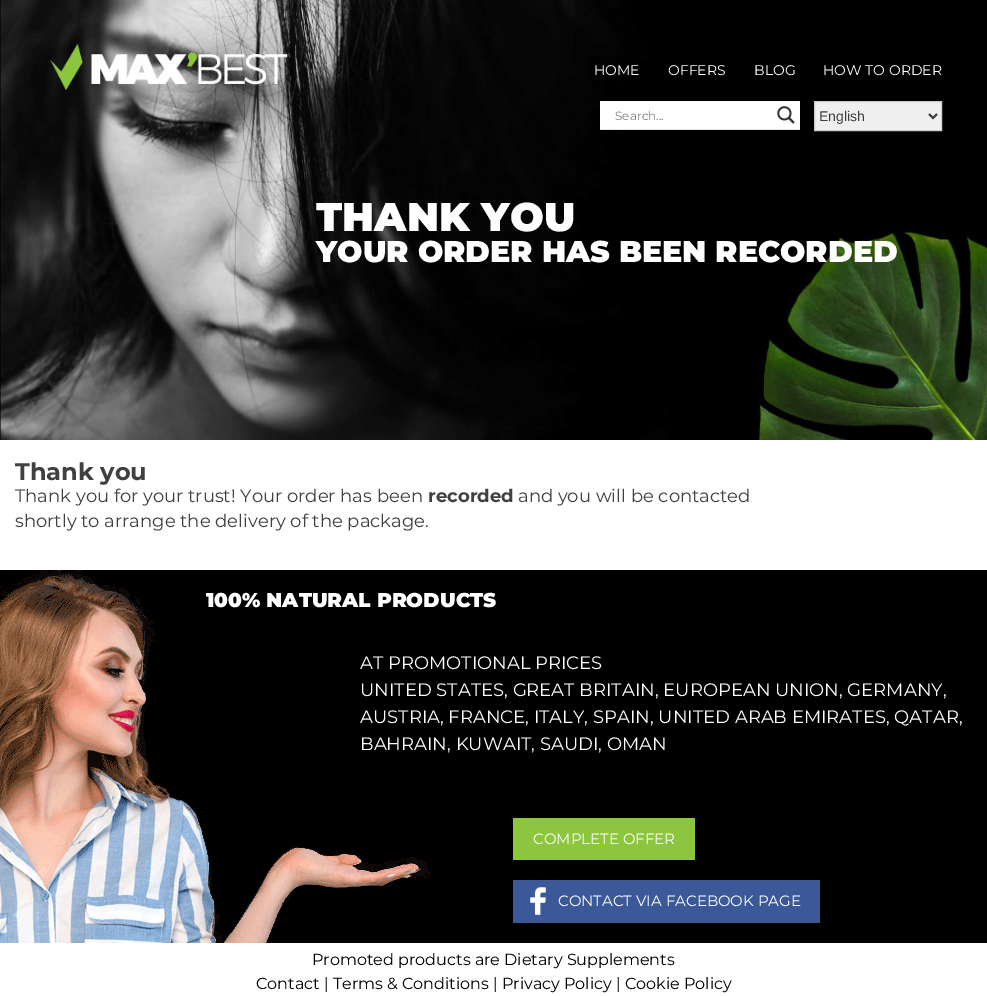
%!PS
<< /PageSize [987 996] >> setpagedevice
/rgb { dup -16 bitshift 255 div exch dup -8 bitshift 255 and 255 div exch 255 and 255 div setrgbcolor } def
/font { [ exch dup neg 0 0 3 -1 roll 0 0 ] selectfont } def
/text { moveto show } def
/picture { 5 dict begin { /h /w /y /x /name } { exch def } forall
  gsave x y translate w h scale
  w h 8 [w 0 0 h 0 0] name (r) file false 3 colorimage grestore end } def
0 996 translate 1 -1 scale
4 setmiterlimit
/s1 { /Montserrat-Regular 14 font 16#FFFFFF rgb } def
/s2 { /Montserrat-Regular 12 font 16#7D7D7D rgb } def
/s3 { /LiberationSans-Regular 14 font 16#404040 rgb } def
/s4 { /Montserrat-Black 40 font 16#FFFFFF rgb } def
/s5 { /Montserrat-Black 30 font 16#FFFFFF rgb } def
/s6 { /Montserrat-Bold 24 font 16#404040 rgb } def
/s7 { /Montserrat-Regular 18 font 16#404040 rgb } def
/s8 { /Montserrat-Bold 18 font 16#404040 rgb } def
/s9 { /Montserrat-Black 20 font 16#FFFFFF rgb } def
/s10 { /Montserrat-Regular 18 font 16#FFFFFF rgb } def
/s11 { /Montserrat-Regular 15 font 16#FFFFFF rgb } def
/s12 { /Montserrat-Regular 16 font 16#000000 rgb } def
16#FFFFFF rgb
0 0 987 996 rectfill
(pic3.raw) 0 0 987 440 picture
(pic1.raw) 50 43 238 47 picture
s1
(HOME) 594 75 text
(OFFERS) 668 75 text
(BLOG) 754 75 text
(HOW TO ORDER) 823 75 text
16#E4E4E4 rgb
600 129 200 1 rectfill
16#FFFFFF rgb
600 101 200 28 rectfill
s2
(Search...) 615 120 text
(pic2.raw) 777 106 18 18 picture
16#EFEFEF rgb
814.5 101.5 moveto 941.5 101.5 lineto 941.5 130.5 lineto 814.5 130.5 lineto closepath gsave fill grestore
16#CCCCCC rgb
stroke
16#404040 rgb
2 setlinewidth
929 114 moveto 933 118 lineto 937 114 lineto stroke
s3
(English) 819 121 text
s4
(THANK YOU) 316 231 text
s5
(YOUR ORDER HAS BEEN RECORDED) 316 262 text
s6
(Thank you) 15 480 text
s7
(Thank you for your trust! Your order has been) 15 502 text
s8
(recorded) 428 502 text
s7
(and you will be contacted) 518 502 text
(shortly to arrange the delivery of the package.) 15 527 text
16#000000 rgb
0 570 987 373 rectfill
(pic4.raw) 0 570 430 373 picture
s9
(100% NATURAL PRODUCTS) 206 607 text
s10
(AT PROMOTIONAL PRICES) 360 669 text
(UNITED STATES, GREAT BRITAIN, EUROPEAN UNION, GERMANY,) 360 696 text
(AUSTRIA, FRANCE, ITALY, SPAIN, UNITED ARAB EMIRATES, QATAR,) 360 723 text
(BAHRAIN, KUWAIT, SAUDI, OMAN) 360 750 text
16#8CC63F rgb
513 818 182 42 rectfill
s11
(COMPLETE OFFER) 533 844 text
16#3B5998 rgb
513 880 307 43 rectfill
(pic5.raw) 530 887 16 28 picture
s11
(CONTACT VIA FACEBOOK PAGE) 558 906 text
s12
(Promoted products are Dietary Supplements) 312 965 text
(Contact | Terms & Conditions | Privacy Policy | Cookie Policy) 256 989 text
showpage
